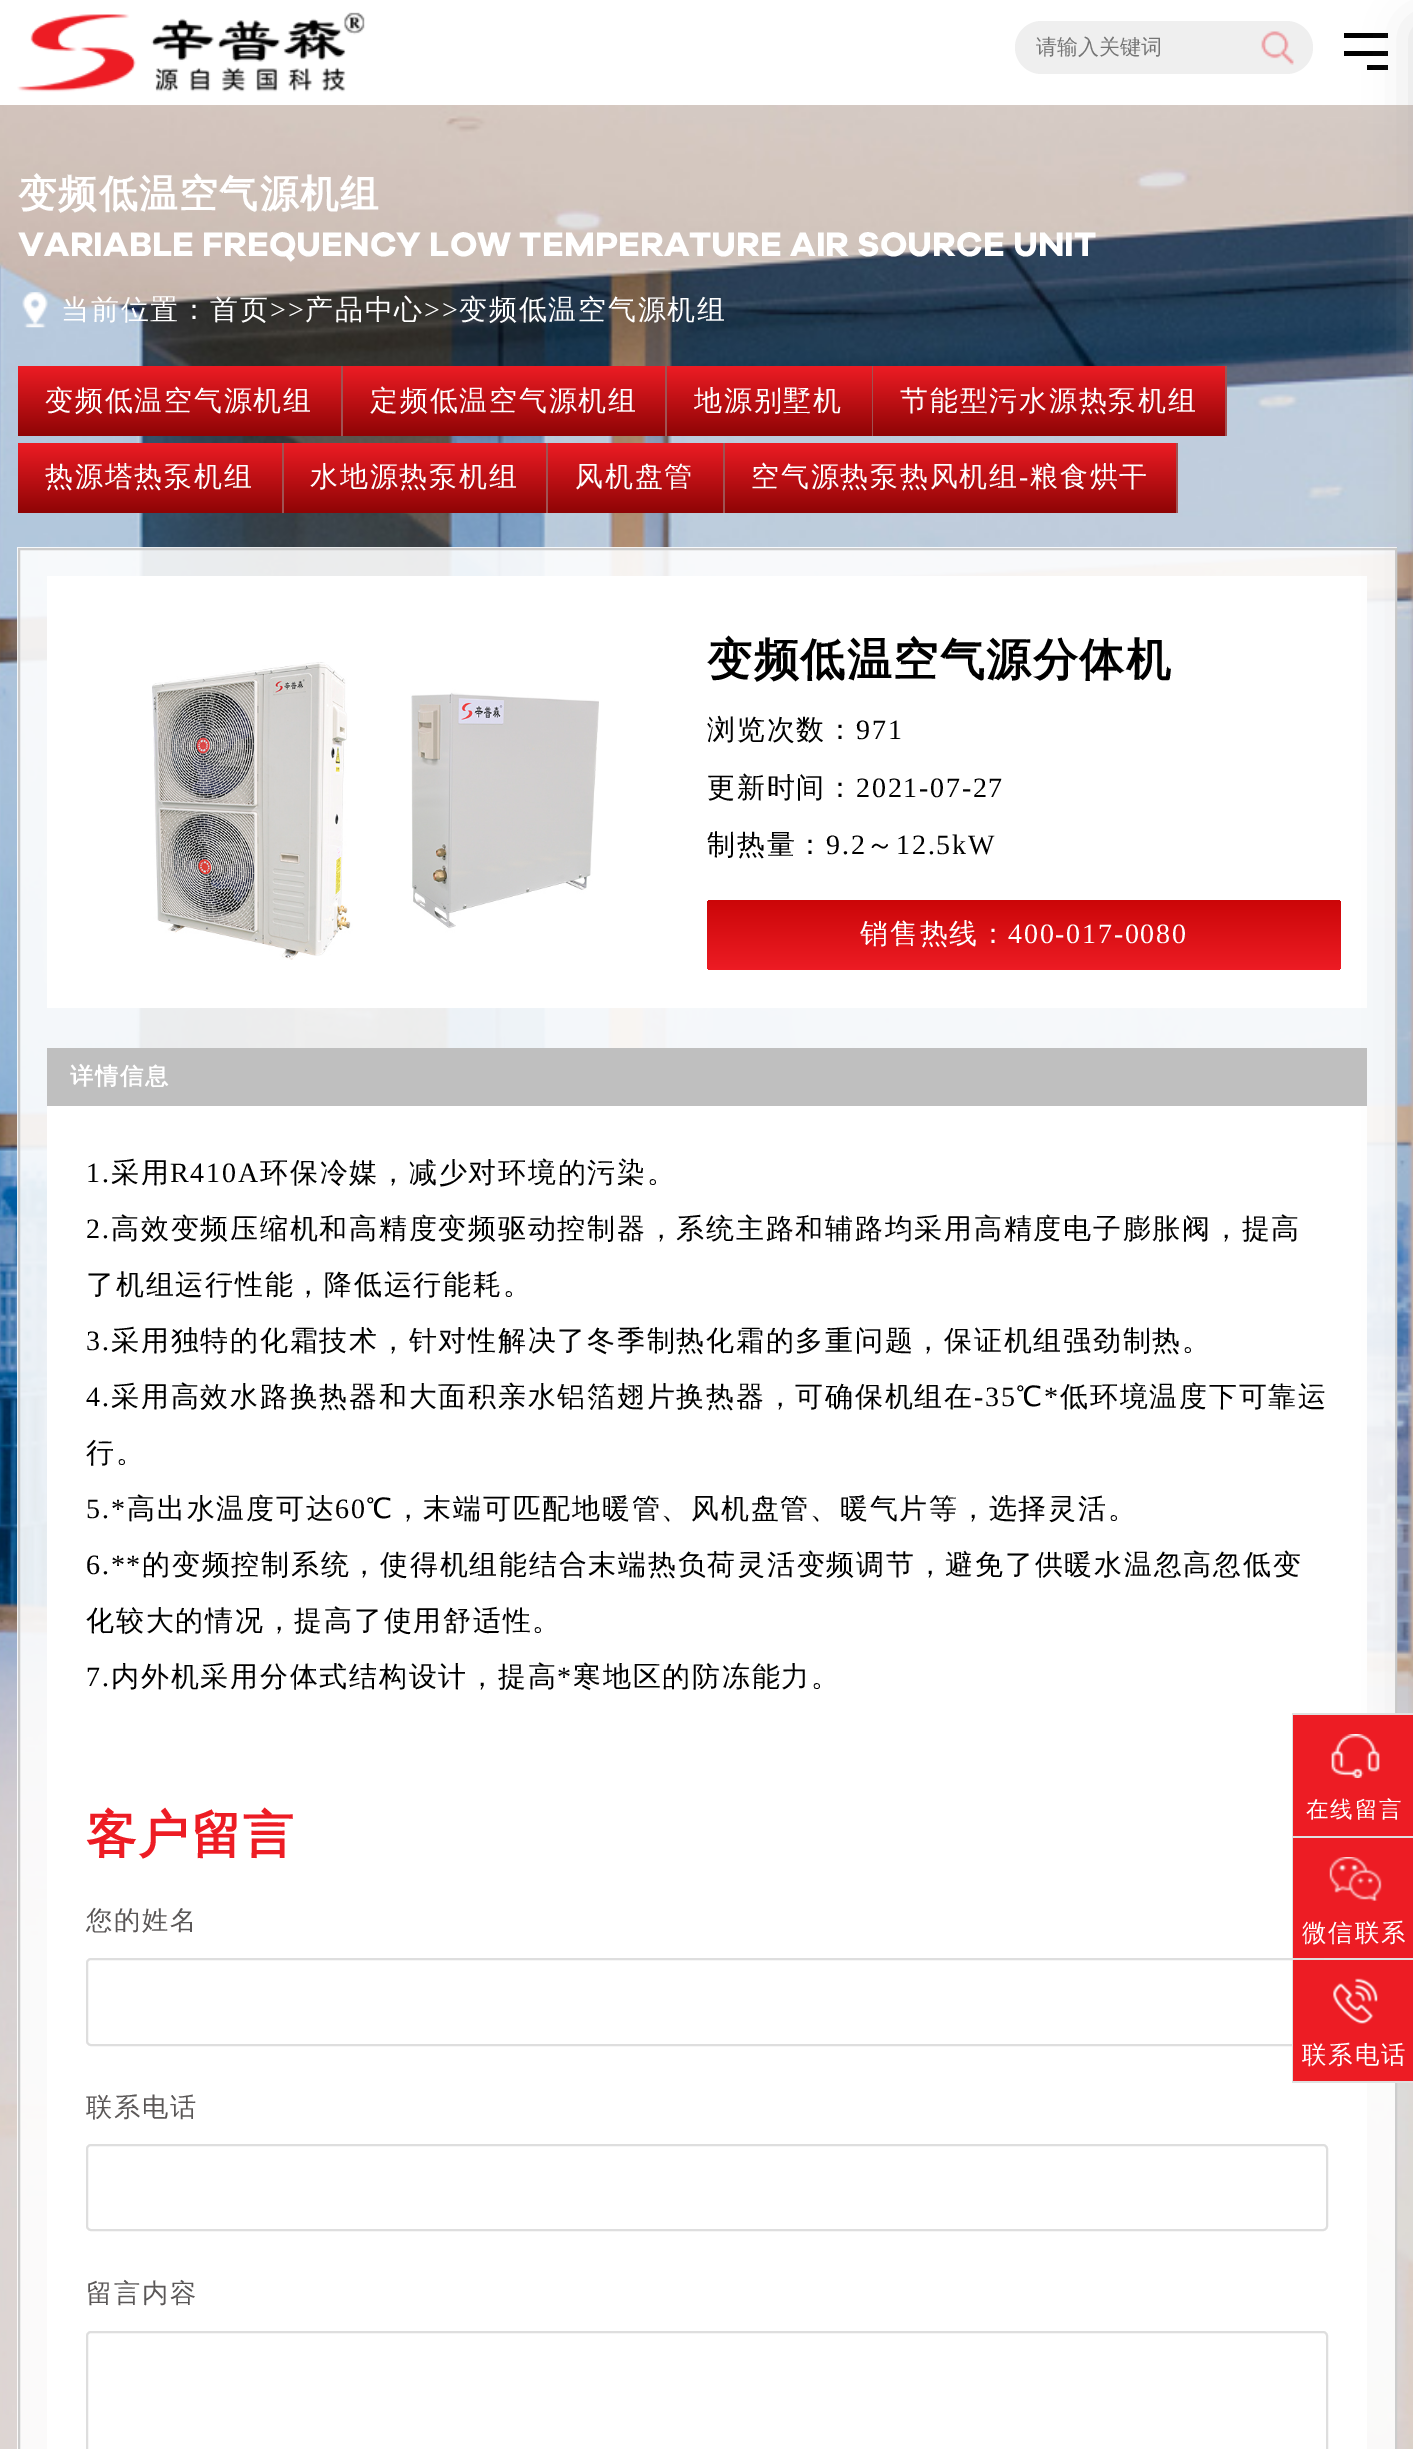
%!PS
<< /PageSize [1413 2449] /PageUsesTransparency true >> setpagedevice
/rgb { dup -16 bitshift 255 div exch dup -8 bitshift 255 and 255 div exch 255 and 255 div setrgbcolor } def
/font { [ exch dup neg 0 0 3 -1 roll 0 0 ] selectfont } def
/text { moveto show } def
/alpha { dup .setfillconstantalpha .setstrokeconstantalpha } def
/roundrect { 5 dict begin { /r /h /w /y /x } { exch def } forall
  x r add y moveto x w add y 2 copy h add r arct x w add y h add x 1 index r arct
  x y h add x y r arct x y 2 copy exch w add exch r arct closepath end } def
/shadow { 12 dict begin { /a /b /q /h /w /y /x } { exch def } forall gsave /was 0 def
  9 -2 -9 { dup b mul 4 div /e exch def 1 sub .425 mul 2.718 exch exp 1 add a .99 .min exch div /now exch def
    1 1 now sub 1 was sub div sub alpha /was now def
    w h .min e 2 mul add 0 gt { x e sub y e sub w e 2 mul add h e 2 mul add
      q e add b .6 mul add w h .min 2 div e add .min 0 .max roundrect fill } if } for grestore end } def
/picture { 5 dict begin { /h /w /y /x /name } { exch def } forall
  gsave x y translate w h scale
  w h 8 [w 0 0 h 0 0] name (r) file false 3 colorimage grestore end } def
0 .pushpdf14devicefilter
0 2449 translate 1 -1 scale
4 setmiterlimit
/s1 { /WenQuanYiZenHei-Medium 21 font 16#757575 rgb } def
/s2 { /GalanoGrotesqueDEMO-Bold 35 font 16#FFFFFF rgb } def
16#FFFFFF rgb
0 0 1413 2449 rectfill
(pic1.raw) 0 105 1413 2344 picture
(pic2.raw) 17 12 348 80 picture
16#EFEFEF rgb
1015 21 298 53 26.5 roundrect fill
s1
(请输入关键词) 1036 54 text
(pic3.raw) 1261 31 33 34 picture
16#000000 rgb
1344 51 44 5 rectfill
1344 33 44 5 rectfill
1367 65 21 5 rectfill
0.9 alpha
16#FEFEFE rgb
17 547 1380 1902 rectfill
1 alpha
16#CCCCCC rgb
2 setlinewidth
19 549 1377 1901 rectstroke
16#FFFFFF rgb
47 576 1320 432 rectfill
47 1106 1320 1343 rectfill
16#BFBFBF rgb
47 1048 1320 58 rectfill
16#A7A5A5 rgb
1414 26 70 1750 0 23.5 0.38 shadow
/WenQuanYiZenHei-Bold 38.5 font
16#FFFFFF rgb
18 207 moveto 1.75 0 (变频低温空气源机组) ashow
s2
(VARIABLE FREQUENCY LOW TEMPERATURE AIR SOURCE UNIT) 18 256 text
(pic4.raw) 22 292 26 36 picture
/WenQuanYiZenHei-Medium 28 font
61 319 moveto 1.75 0 (当前位置：首页) ashow
/LiberationSerif-Regular 28 font
270 319 moveto 1.75 0 (>>) ashow
/WenQuanYiZenHei-Medium 28 font
305 319 moveto 1.75 0 (产品中心) ashow
/LiberationSerif-Regular 28 font
424 319 moveto 1.75 0 (>>) ashow
/WenQuanYiZenHei-Medium 28 font
459 319 moveto 1.75 0 (变频低温空气源机组) ashow
gsave 18 366 moveto 341 366 lineto 341 436 lineto 18 436 lineto closepath clip newpath
<< /ShadingType 2 /ColorSpace /DeviceRGB /Coords [179 366 179 436] /Extend [true true] /Function << /FunctionType 2 /Domain [0 1] /C0 [0.929 0.11 0.141] /C1 [0.557 0.016 0.02] /N 1 >> >> shfill grestore
16#A05252 rgb
341 366 2 70 rectfill
16#FFFFFF rgb
45 410 moveto 1.75 0 (变频低温空气源机组) ashow
gsave 343 366 moveto 665 366 lineto 665 436 lineto 343 436 lineto closepath clip newpath
<< /ShadingType 2 /ColorSpace /DeviceRGB /Coords [504 366 504 436] /Extend [true true] /Function << /FunctionType 2 /Domain [0 1] /C0 [0.929 0.11 0.141] /C1 [0.557 0.016 0.02] /N 1 >> >> shfill grestore
16#A05252 rgb
665 366 2 70 rectfill
16#FFFFFF rgb
370 410 moveto 1.75 0 (定频低温空气源机组) ashow
gsave 667 366 moveto 872 366 lineto 872 436 lineto 667 436 lineto closepath clip newpath
<< /ShadingType 2 /ColorSpace /DeviceRGB /Coords [769 366 769 436] /Extend [true true] /Function << /FunctionType 2 /Domain [0 1] /C0 [0.929 0.11 0.141] /C1 [0.557 0.016 0.02] /N 1 >> >> shfill grestore
16#A05252 rgb
872 366 1 70 rectfill
16#FFFFFF rgb
694 410 moveto 1.75 0 (地源别墅机) ashow
gsave 873 366 moveto 1225 366 lineto 1225 436 lineto 873 436 lineto closepath clip newpath
<< /ShadingType 2 /ColorSpace /DeviceRGB /Coords [1049 366 1049 436] /Extend [true true] /Function << /FunctionType 2 /Domain [0 1] /C0 [0.929 0.11 0.141] /C1 [0.557 0.016 0.02] /N 1 >> >> shfill grestore
16#A05252 rgb
1225 366 2 70 rectfill
16#FFFFFF rgb
900 410 moveto 1.75 0 (节能型污水源热泵机组) ashow
gsave 18 443 moveto 282 443 lineto 282 513 lineto 18 513 lineto closepath clip newpath
<< /ShadingType 2 /ColorSpace /DeviceRGB /Coords [150 443 150 513] /Extend [true true] /Function << /FunctionType 2 /Domain [0 1] /C0 [0.929 0.11 0.141] /C1 [0.557 0.016 0.02] /N 1 >> >> shfill grestore
16#A05252 rgb
282 443 2 70 rectfill
16#FFFFFF rgb
45 486 moveto 1.75 0 (热源塔热泵机组) ashow
gsave 284 443 moveto 546 443 lineto 546 513 lineto 284 513 lineto closepath clip newpath
<< /ShadingType 2 /ColorSpace /DeviceRGB /Coords [415 443 415 513] /Extend [true true] /Function << /FunctionType 2 /Domain [0 1] /C0 [0.929 0.11 0.141] /C1 [0.557 0.016 0.02] /N 1 >> >> shfill grestore
16#A05252 rgb
546 443 2 70 rectfill
16#FFFFFF rgb
310 486 moveto 1.75 0 (水地源热泵机组) ashow
gsave 548 443 moveto 723 443 lineto 723 513 lineto 548 513 lineto closepath clip newpath
<< /ShadingType 2 /ColorSpace /DeviceRGB /Coords [635 443 635 513] /Extend [true true] /Function << /FunctionType 2 /Domain [0 1] /C0 [0.929 0.11 0.141] /C1 [0.557 0.016 0.02] /N 1 >> >> shfill grestore
16#A05252 rgb
723 443 2 70 rectfill
16#FFFFFF rgb
575 486 moveto 1.75 0 (风机盘管) ashow
gsave 725 443 moveto 1176 443 lineto 1176 513 lineto 725 513 lineto closepath clip newpath
<< /ShadingType 2 /ColorSpace /DeviceRGB /Coords [950 443 950 513] /Extend [true true] /Function << /FunctionType 2 /Domain [0 1] /C0 [0.929 0.11 0.141] /C1 [0.557 0.016 0.02] /N 1 >> >> shfill grestore
16#A05252 rgb
1176 443 2 70 rectfill
16#FFFFFF rgb
751 486 moveto 1.75 0 (空气源热泵热风机组) ashow
/LiberationSerif-Regular 28 font
1019 486 moveto 1.75 0 (-) ashow
/WenQuanYiZenHei-Medium 28 font
1030 486 moveto 1.75 0 (粮食烘干) ashow
(pic5.raw) 152 662 447 298 picture
/WenQuanYiZenHei-Bold 44.75 font
16#000000 rgb
707 675 moveto 1.75 0 (变频低温空气源分体机) ashow
/WenQuanYiZenHei-Medium 28 font
707 739 moveto 1.75 0 (浏览次数：) ashow
/LiberationSerif-Regular 28 font
856 739 moveto 1.75 0 (971) ashow
/WenQuanYiZenHei-Medium 28 font
707 797 moveto 1.75 0 (更新时间：) ashow
/LiberationSerif-Regular 28 font
856 797 moveto 1.75 0 (2021-07-27) ashow
/WenQuanYiZenHei-Medium 28 font
707 854 moveto 1.75 0 (制热量：) ashow
/LiberationSerif-Regular 28 font
826 854 moveto 1.75 0 (9.2) ashow
/WenQuanYiZenHei-Medium 28 font
866 854 moveto 1.75 0 (～) ashow
/LiberationSerif-Regular 28 font
896 854 moveto 1.75 0 (12.5kW) ashow
gsave 707 900 634 70 4 roundrect clip newpath
<< /ShadingType 2 /ColorSpace /DeviceRGB /Coords [1024 900 1024 970] /Extend [true true] /Function << /FunctionType 2 /Domain [0 1] /C0 [0.796 0.024 0.031] /C1 [0.929 0.11 0.141] /N 1 >> >> shfill grestore
/WenQuanYiZenHei-Medium 28 font
16#FFFFFF rgb
860 943 moveto 1.75 0 (销售热线：) ashow
/LiberationSerif-Regular 28 font
1008 943 moveto 1.75 0 (400-017-0080) ashow
/WenQuanYiZenHei-Bold 23.25 font
70 1084 moveto 1.75 0 (详情信息) ashow
/LiberationSerif-Regular 28 font
16#000000 rgb
86 1182 moveto 1.75 0 (1.) ashow
/WenQuanYiZenHei-Medium 28 font
111 1182 moveto 1.75 0 (采用) ashow
/LiberationSerif-Regular 28 font
170 1182 moveto 1.75 0 (R410A) ashow
/WenQuanYiZenHei-Medium 28 font
260 1182 moveto 1.75 0 (环保冷媒，减少对环境的污染。) ashow
/LiberationSerif-Regular 28 font
86 1238 moveto 1.75 0 (2.) ashow
/WenQuanYiZenHei-Medium 28 font
111 1238 moveto 1.75 0 (高效变频压缩机和高精度变频驱动控制器，系统主路和辅路均采用高精度电子膨胀阀，提高) ashow
86 1294 moveto 1.75 0 (了机组运行性能，降低运行能耗。) ashow
/LiberationSerif-Regular 28 font
86 1350 moveto 1.75 0 (3.) ashow
/WenQuanYiZenHei-Medium 28 font
111 1350 moveto 1.75 0 (采用独特的化霜技术，针对性解决了冬季制热化霜的多重问题，保证机组强劲制热。) ashow
/LiberationSerif-Regular 28 font
86 1406 moveto 1.75 0 (4.) ashow
/WenQuanYiZenHei-Medium 28 font
111 1406 moveto 1.75 0 (采用高效水路换热器和大面积亲水铝箔翅片换热器，可确保机组在) ashow
/LiberationSerif-Regular 28 font
974 1406 moveto 1.75 0 (-35) ashow
/WenQuanYiZenHei-Medium 28 font
1016 1406 moveto 1.75 0 (℃) ashow
/LiberationSerif-Regular 28 font
1044 1406 moveto 1.75 0 (*) ashow
/WenQuanYiZenHei-Medium 28 font
1060 1406 moveto 1.75 0 (低环境温度下可靠运) ashow
86 1462 moveto 1.75 0 (行。) ashow
/LiberationSerif-Regular 28 font
86 1518 moveto 1.75 0 (5.*) ashow
/WenQuanYiZenHei-Medium 28 font
127 1518 moveto 1.75 0 (高出水温度可达) ashow
/LiberationSerif-Regular 28 font
335 1518 moveto 1.75 0 (60) ashow
/WenQuanYiZenHei-Medium 28 font
366 1518 moveto 1.75 0 (℃，末端可匹配地暖管、风机盘管、暖气片等，选择灵活。) ashow
/LiberationSerif-Regular 28 font
86 1574 moveto 1.75 0 (6.**) ashow
/WenQuanYiZenHei-Medium 28 font
142 1574 moveto 1.75 0 (的变频控制系统，使得机组能结合末端热负荷灵活变频调节，避免了供暖水温忽高忽低变) ashow
86 1630 moveto 1.75 0 (化较大的情况，提高了使用舒适性。) ashow
/LiberationSerif-Regular 28 font
86 1686 moveto 1.75 0 (7.) ashow
/WenQuanYiZenHei-Medium 28 font
111 1686 moveto 1.75 0 (内外机采用分体式结构设计，提高) ashow
/LiberationSerif-Regular 28 font
557 1686 moveto 1.75 0 (*) ashow
/WenQuanYiZenHei-Medium 28 font
573 1686 moveto 1.75 0 (寒地区的防冻能力。) ashow
/WenQuanYiZenHei-Bold 50.5 font
16#ED1C24 rgb
86 1852 moveto 1.75 0 (客户留言) ashow
/WenQuanYiZenHei-Medium 26.25 font
16#5A5757 rgb
86 1929 moveto 1.75 0 (您的姓名) ashow
16#DEDEDE rgb
87 1959 1240 86 4 roundrect stroke
16#5A5757 rgb
86 2116 moveto 1.75 0 (联系电话) ashow
16#DEDEDE rgb
87 2145 1240 85 4 roundrect stroke
16#5A5757 rgb
86 2302 moveto 1.75 0 (留言内容) ashow
16#DEDEDE rgb
87 2332 1240 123 4 roundrect stroke
16#E0E0E0 rgb
1292 1713 121 2 rectfill
1292 1713 2 370 rectfill
16#ED1C24 rgb
1293 1715 120 121 rectfill
16#E0E0E0 rgb
1293 1836 120 2 rectfill
(pic6.raw) 1331 1734 49 44 picture
/WenQuanYiZenHei-Medium 22.5 font
16#FFFFFF rgb
1306 1817 moveto 1.75 0 (在线留言) ashow
16#ED1C24 rgb
1293 1838 120 120 rectfill
16#E0E0E0 rgb
1324 1958 89 2 rectfill
(pic7.raw) 1329 1857 53 44 picture
/WenQuanYiZenHei-Medium 24.5 font
16#FFFFFF rgb
1302 1941 moveto 1.75 0 (微信联系) ashow
16#ED1C24 rgb
1293 1960 120 121 rectfill
16#E0E0E0 rgb
1293 2081 120 2 rectfill
(pic8.raw) 1333 1978 45 46 picture
16#FFFFFF rgb
1302 2063 moveto 1.75 0 (联系电话) ashow
.poppdf14devicefilter showpage
